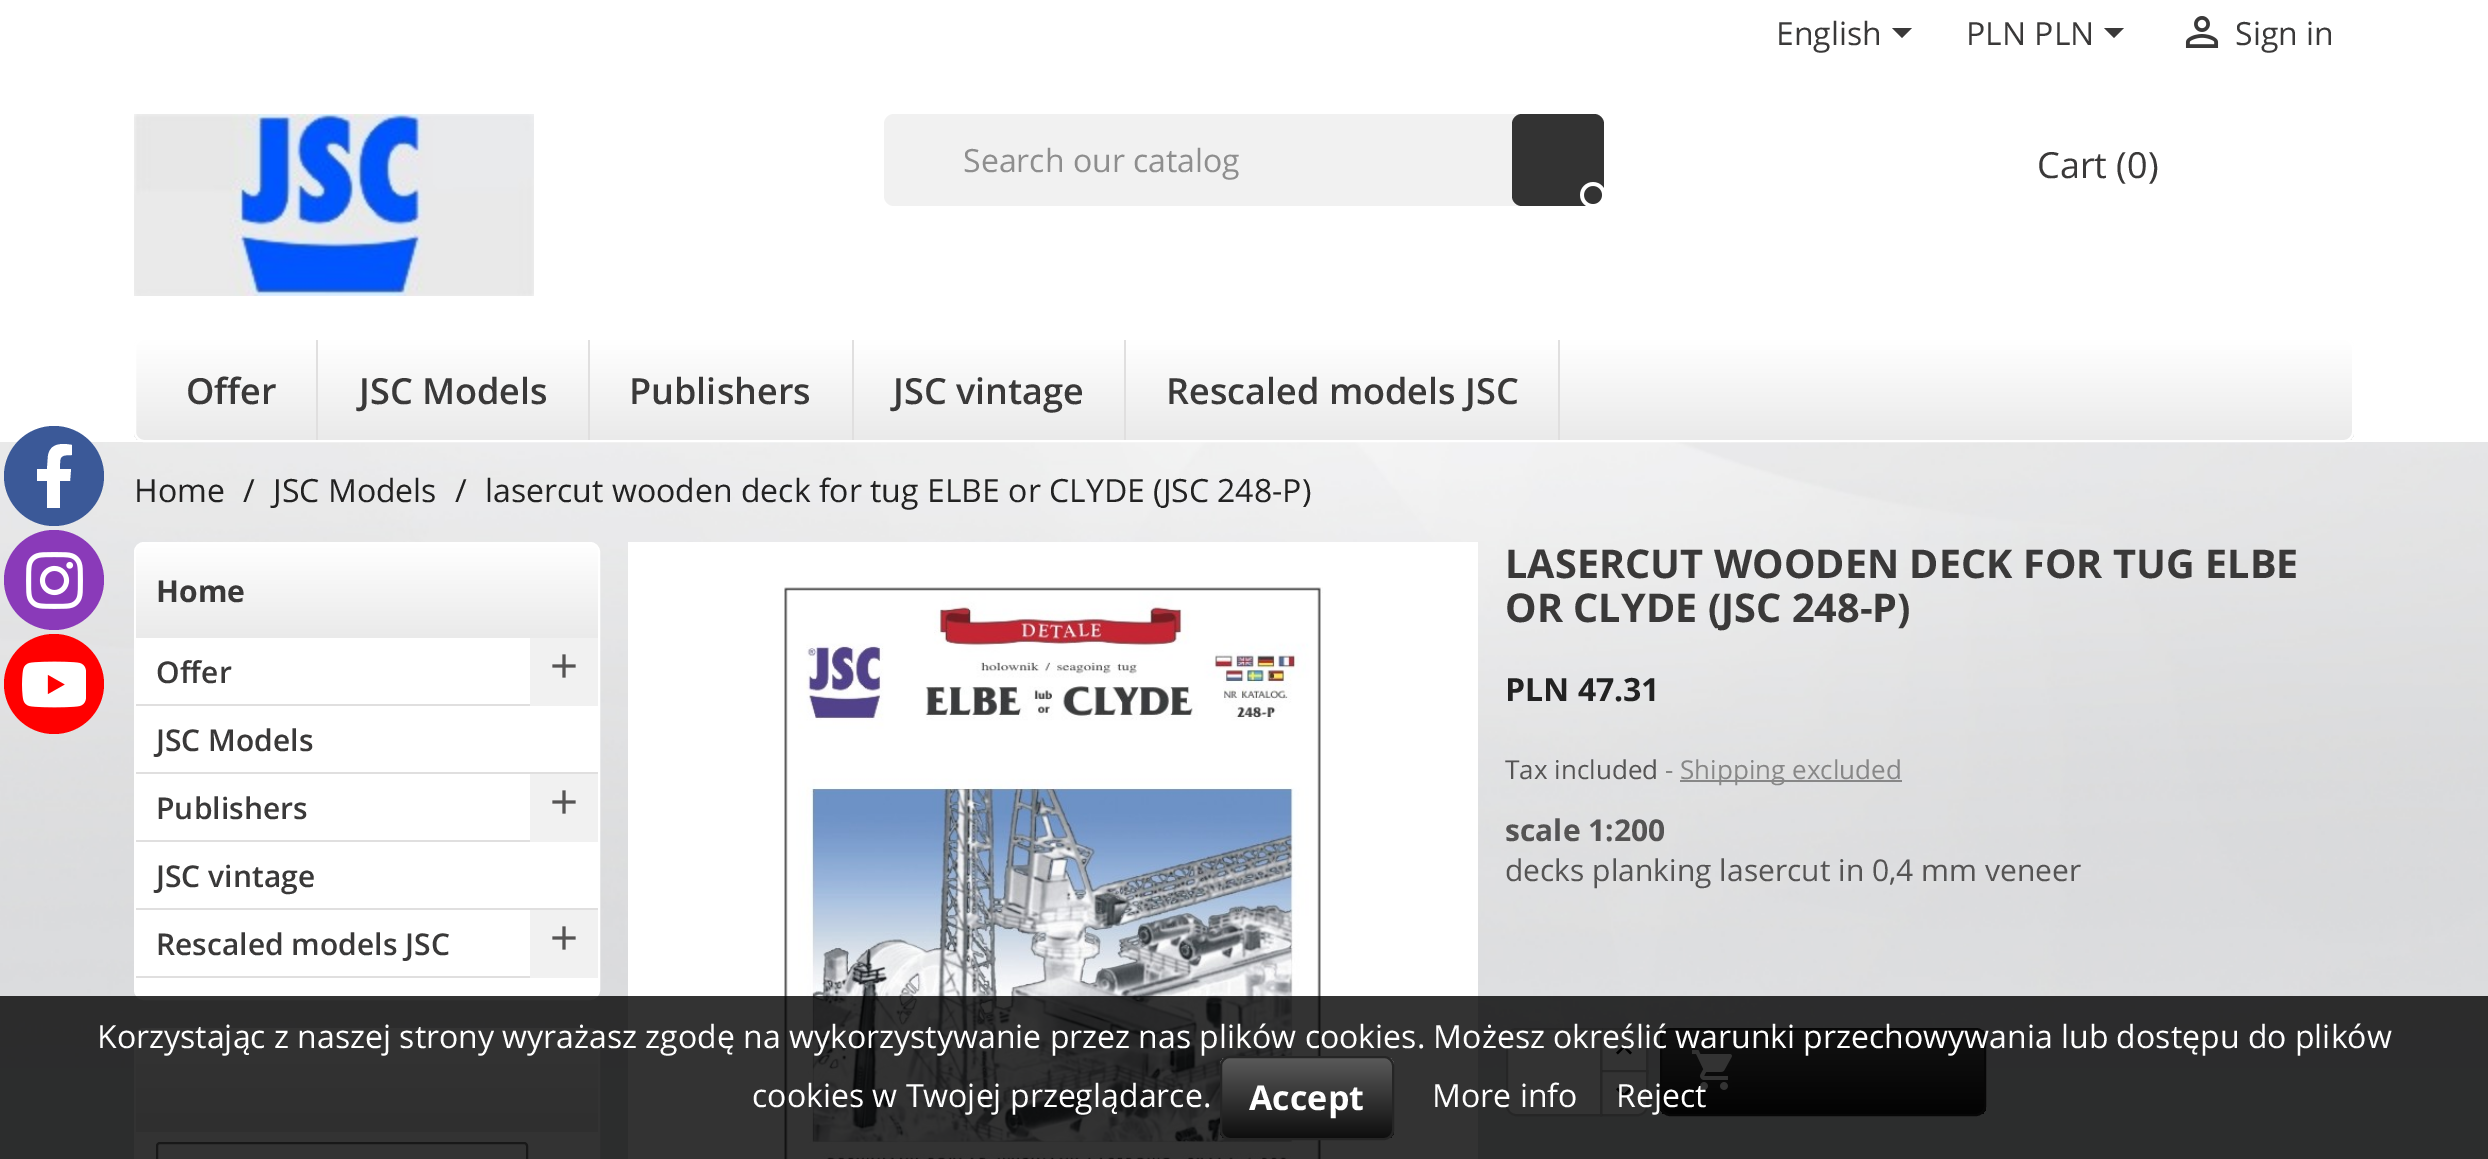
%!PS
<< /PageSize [2488 1159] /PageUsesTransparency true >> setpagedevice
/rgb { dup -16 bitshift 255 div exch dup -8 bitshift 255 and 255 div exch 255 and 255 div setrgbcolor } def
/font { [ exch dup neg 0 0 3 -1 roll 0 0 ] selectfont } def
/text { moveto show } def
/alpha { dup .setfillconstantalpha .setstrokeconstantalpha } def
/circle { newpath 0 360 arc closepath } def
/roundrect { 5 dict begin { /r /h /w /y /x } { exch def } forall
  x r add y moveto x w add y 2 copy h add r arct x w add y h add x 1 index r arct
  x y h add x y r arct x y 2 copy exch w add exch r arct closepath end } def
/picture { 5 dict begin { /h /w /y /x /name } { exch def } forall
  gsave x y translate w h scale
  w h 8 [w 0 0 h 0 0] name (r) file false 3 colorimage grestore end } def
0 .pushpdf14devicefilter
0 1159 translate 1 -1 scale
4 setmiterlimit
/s1 { /OpenSans-Regular 32 font 16#3A3939 rgb } def
/s2 { /OpenSans-Regular 32 font 16#8E8E8E rgb } def
/s3 { /OpenSans-Regular 36 font 16#3A3939 rgb } def
/s4 { /OpenSans-SemiBold 36 font 16#3A3939 rgb } def
/s5 { /OpenSans-Regular 32 font 16#222222 rgb } def
/s6 { /OpenSans-Bold 30 font 16#3A3939 rgb } def
/s7 { /OpenSans-SemiBold 30 font 16#3A3939 rgb } def
/s8 { /OpenSans-Bold 39.7 font 16#3A3939 rgb } def
/s9 { /OpenSans-Bold 32 font 16#222222 rgb } def
/s10 { /OpenSans-Regular 26 font 16#555454 rgb } def
/s11 { /OpenSans-Regular 26 font 16#878787 rgb } def
/s12 { /OpenSans-Bold 30 font 16#555454 rgb } def
/s13 { /OpenSans-Regular 30 font 16#555454 rgb } def
/s14 { /OpenSans-Regular 32 font 16#FFFFFF rgb } def
/s15 { /OpenSans-Bold 34 font 16#FFFFFF rgb } def
16#DEE0E2 rgb
0 0 2488 1159 rectfill
(pic1.raw) 0 442 2488 626 picture
16#FFFFFF rgb
0 0 2488 442 rectfill
16#3B5998 rgb
54 476 50 circle fill
gsave
22 444 64 64 rectclip
16#FFFFFF rgb
70 481 moveto 71 469 lineto 60 469 lineto 60 457 59 455 72 455 curveto 72 445 lineto 62 443 50 443 48 456 curveto 47 469 lineto 37 469 lineto 37 481 lineto 47 481 lineto 47 509 lineto 60 509 lineto 60 481 lineto closepath fill
grestore
16#8A3AB9 rgb
54 580 50 circle fill
(pic2.raw) 26 552 57 57 picture
16#FF0000 rgb
54 684 50 circle fill
(pic3.raw) 22 661 64 47 picture
s1
(English) 1776 45 text
1892 28 moveto 1912 28 lineto 1902 38 lineto closepath fill
(PLN PLN) 1966 45 text
2104 28 moveto 2124 28 lineto 2114 38 lineto closepath fill
(pic4.raw) 2185 16 34 32 picture
(Sign in) 2235 45 text
(pic5.raw) 134 114 400 182 picture
16#F1F1F1 rgb
884 114 720 92 10 roundrect fill
s2
(Search our catalog) 963 172 text
16#333333 rgb
1512 114 92 92 10 roundrect fill
(pic6.raw) 1580 182 24 24 picture
s3
(Cart \(0\)) 2037 178 text
gsave
134 338 2220 104 10 roundrect clip newpath
gsave 134 340 moveto 2354 340 lineto 2354 440 lineto 134 440 lineto closepath clip newpath
<< /ShadingType 2 /ColorSpace /DeviceRGB /Coords [1244 340 1244 440] /Extend [true true] /Function << /FunctionType 2 /Domain [0 1] /C0 [1 1 1] /C1 [0.918 0.918 0.918] /N 1 >> >> shfill grestore
grestore
16#FFFFFF rgb
2 setlinewidth
135 339 2218 102 9 roundrect stroke
16#E0DFDF rgb
316 340 2 100 rectfill
s4
(Offer) 186 404 text
16#E0DFDF rgb
588 340 2 100 rectfill
s4
(JSC Models) 359 404 text
16#E0DFDF rgb
852 340 2 100 rectfill
s4
(Publishers) 629 404 text
16#E0DFDF rgb
1124 340 2 100 rectfill
s4
(JSC vintage) 893 404 text
16#E0DFDF rgb
1558 340 2 100 rectfill
s4
(Rescaled models JSC) 1166 404 text
s5
(Home) 134 502 text
(/) 243 502 text
(JSC Models) 273 502 text
(/) 455 502 text
(lasercut wooden deck for tug ELBE or CLYDE \(JSC 248-P\)) 485 502 text
16#FFFFFF rgb
135 543 464 456 9 roundrect gsave fill grestore
stroke
gsave 144 544 moveto 590 544 lineto 594.5 544 598 547.5 598 552 curveto 598 638 lineto 136 638 lineto 136 552 lineto 136 547.5 139.5 544 144 544 curveto closepath clip newpath
<< /ShadingType 2 /ColorSpace /DeviceRGB /Coords [367 544 367 638] /Extend [true true] /Function << /FunctionType 2 /Domain [0 1] /C0 [1 1 1] /C1 [0.918 0.918 0.918] /N 1 >> >> shfill grestore
s6
(Home) 156 602 text
s7
(Offer) 156 683 text
16#E0DFDF rgb
136 704 394 2 rectfill
16#F1F1F1 rgb
530 638 68 68 rectfill
(pic7.raw) 552 654 24 24 picture
s7
(JSC Models) 156 751 text
16#E0DFDF rgb
136 772 462 2 rectfill
s7
(Publishers) 156 819 text
16#E0DFDF rgb
136 840 394 2 rectfill
16#F1F1F1 rgb
530 774 68 68 rectfill
(pic7.raw) 552 790 24 24 picture
s7
(JSC vintage) 156 887 text
16#E0DFDF rgb
136 908 462 2 rectfill
s7
(Rescaled models JSC) 156 955 text
16#E0DFDF rgb
136 976 394 2 rectfill
16#F1F1F1 rgb
530 910 68 68 rectfill
(pic7.raw) 552 926 24 24 picture
16#FFFFFF rgb
135 1029 464 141 9 roundrect gsave fill grestore
stroke
gsave 144 1030 moveto 590 1030 lineto 594.5 1030 598 1033.5 598 1038 curveto 598 1132 lineto 136 1132 lineto 136 1038 lineto 136 1033.5 139.5 1030 144 1030 curveto closepath clip newpath
<< /ShadingType 2 /ColorSpace /DeviceRGB /Coords [367 1030 367 1132] /Extend [true true] /Function << /FunctionType 2 /Domain [0 1] /C0 [1 1 1] /C1 [0.918 0.918 0.918] /N 1 >> >> shfill grestore
16#767676 rgb
157 1143 370 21 3 roundrect stroke
16#FFFFFF rgb
628 542 850 617 rectfill
(pic8.raw) 784 587 539 572 picture
s8
(LASERCUT WOODEN DECK FOR TUG) 1505 578 text
(ELBE) 2205 578 text
(OR CLYDE \(JSC 248-P\)) 1505 622 text
s9
(PLN 47.31) 1505 701 text
s10
(Tax included) 1505 779 text
s11
(-) 1665 779 text
1680 780 222 2 rectfill
(Shipping excluded) 1680 779 text
s12
(scale 1:200) 1505 841 text
s13
(decks planking lasercut in 0,4 mm veneer) 1505 881 text
16#FFFFFF rgb
1600 1028 moveto 1638 1028 lineto 1643.5 1028 1648 1032.5 1648 1038 curveto 1648 1074 lineto 1600 1074 lineto closepath fill
0.25 alpha
16#000000 rgb
1601 1029 moveto 1638 1029 lineto 1643 1029 1647 1033 1647 1038 curveto 1647 1073 lineto 1601 1073 lineto closepath stroke
1 alpha
16#FFFFFF rgb
1600 1070 moveto 1648 1070 lineto 1648 1106 lineto 1648 1111.5 1643.5 1116 1638 1116 curveto 1600 1116 lineto closepath fill
0.25 alpha
16#000000 rgb
1601 1071 moveto 1647 1071 lineto 1647 1106 lineto 1647 1111 1643 1115 1638 1115 curveto 1601 1115 lineto closepath stroke
1 alpha
16#FFFFFF rgb
1516 1028 moveto 1602 1028 lineto 1602 1116 lineto 1516 1116 lineto 1510.5 1116 1506 1111.5 1506 1106 curveto 1506 1038 lineto 1506 1032.5 1510.5 1028 1516 1028 curveto closepath fill
0.25 alpha
16#000000 rgb
1516 1029 moveto 1601 1029 lineto 1601 1115 lineto 1516 1115 lineto 1511 1115 1507 1111 1507 1106 curveto 1507 1038 lineto 1507 1033 1511 1029 1516 1029 curveto closepath stroke
1 alpha
(pic9.raw) 1616 1044 16 11 picture
(pic10.raw) 1616 1087 16 11 picture
gsave
1660 1028 326 88 10 roundrect clip newpath
gsave 1660 1030 moveto 1986 1030 lineto 1986 1114 lineto 1660 1114 lineto closepath clip newpath
<< /ShadingType 2 /ColorSpace /DeviceRGB /Coords [1823 1030 1823 1114] /Extend [true true] /Function << /FunctionType 2 /Domain [0 1] /C0 [0.353 0.353 0.353] /C1 [0.055 0.055 0.055] /N 1 >> >> shfill grestore
grestore
16#252525 rgb
1661 1029 324 86 9 roundrect stroke
(pic11.raw) 1691 1050 41 40 picture
0.8 alpha
16#000000 rgb
0 996 2488 163 rectfill
1 alpha
s14
(Korzystając z naszej strony wyrażasz zgodę na wykorzystywanie przez nas plików cookies. Możesz określić warunki przechowywania lub dostępu do plików) 97 1048 text
(cookies w Twojej przeglądarce.) 752 1107 text
gsave
1220 1056 174 84 10 roundrect clip newpath
gsave 1220 1058 moveto 1394 1058 lineto 1394 1138 lineto 1220 1138 lineto closepath clip newpath
<< /ShadingType 2 /ColorSpace /DeviceRGB /Coords [1307 1058 1307 1138] /Extend [true true] /Function << /FunctionType 2 /Domain [0 1] /C0 [0.353 0.353 0.353] /C1 [0.055 0.055 0.055] /N 1 >> >> shfill grestore
grestore
16#252525 rgb
1221 1057 172 82 9 roundrect stroke
s15
(Accept) 1249 1110 text
s14
(More info) 1432 1107 text
(Reject) 1616 1107 text
.poppdf14devicefilter showpage
